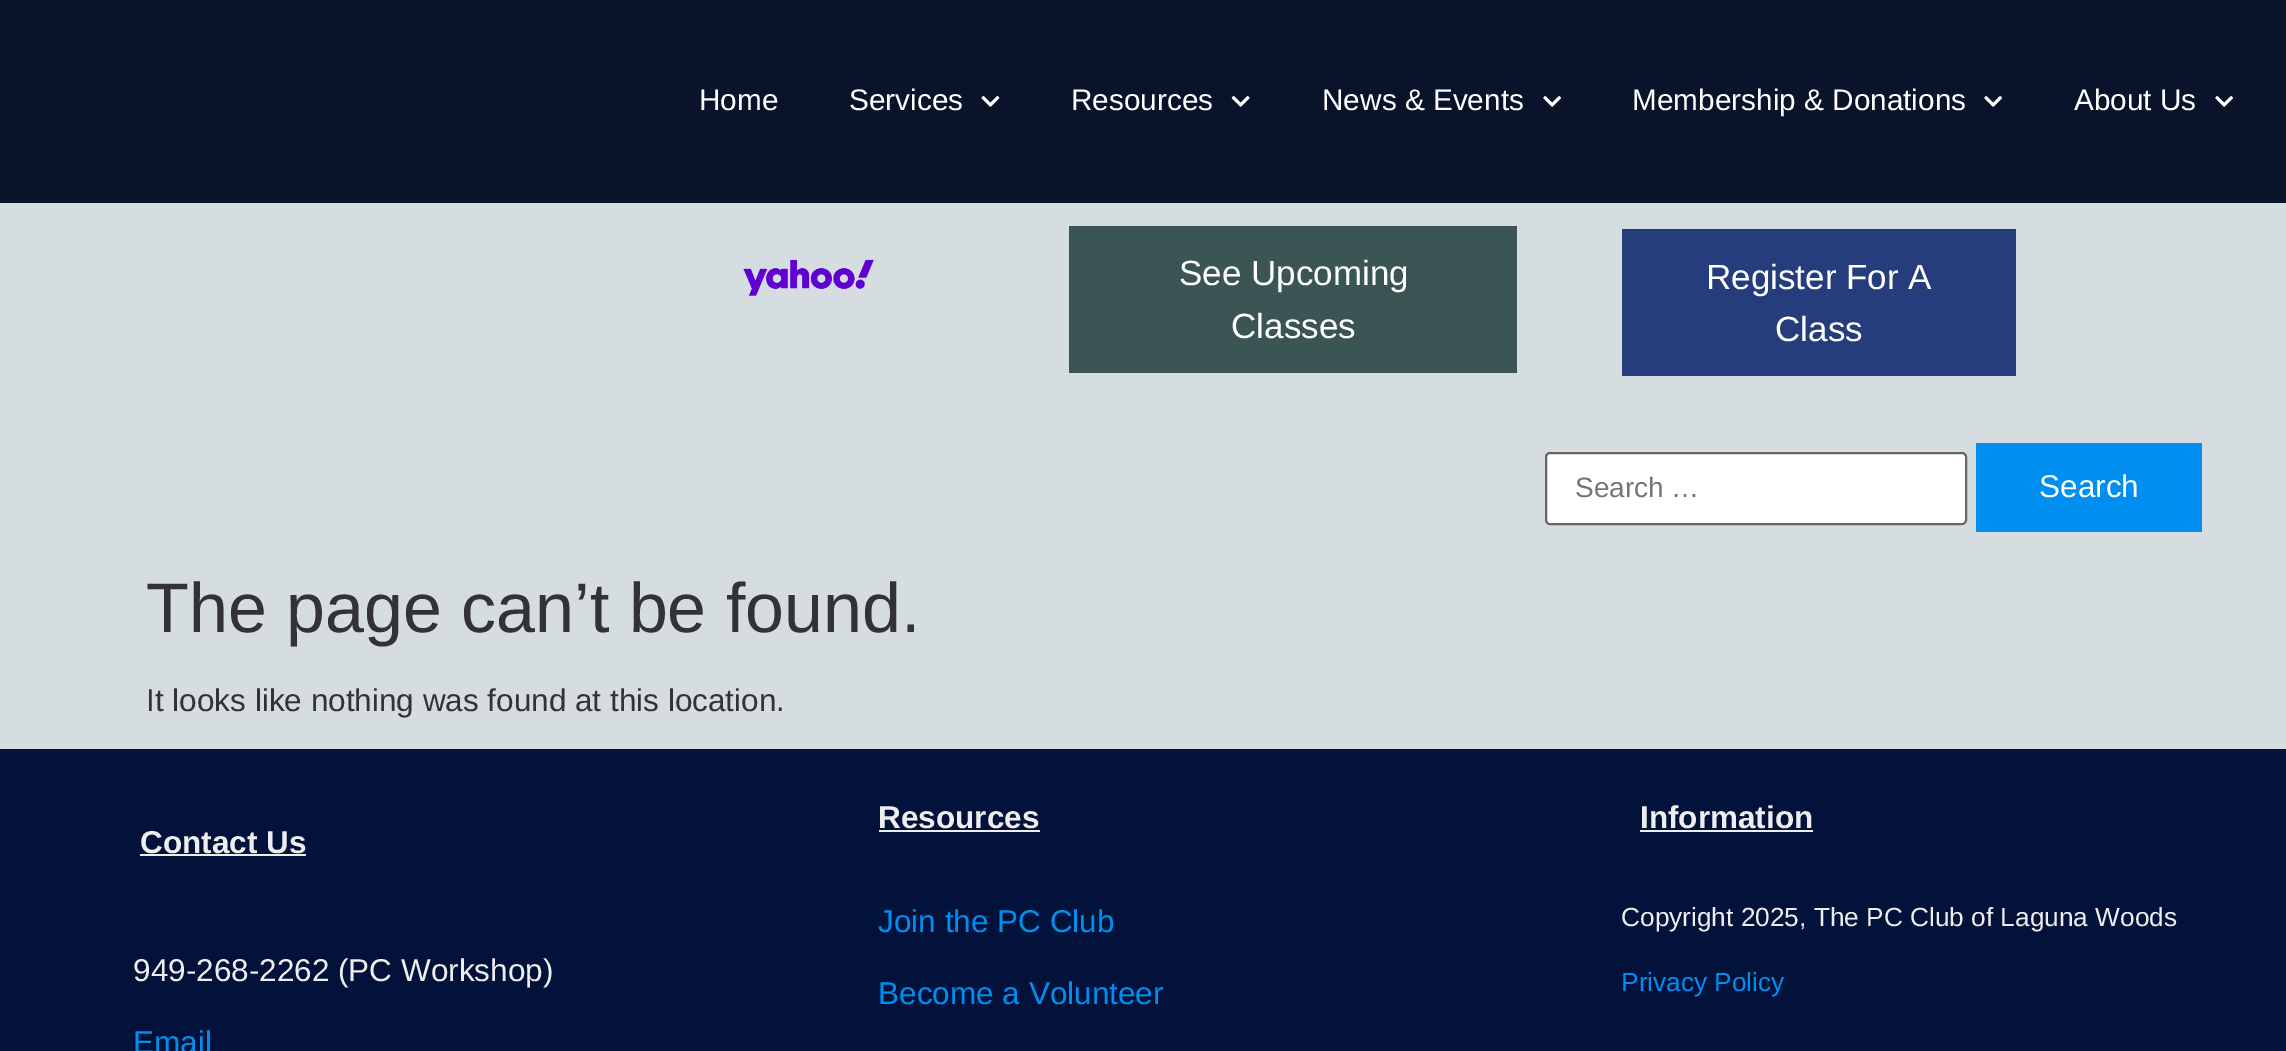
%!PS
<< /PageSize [2286 1051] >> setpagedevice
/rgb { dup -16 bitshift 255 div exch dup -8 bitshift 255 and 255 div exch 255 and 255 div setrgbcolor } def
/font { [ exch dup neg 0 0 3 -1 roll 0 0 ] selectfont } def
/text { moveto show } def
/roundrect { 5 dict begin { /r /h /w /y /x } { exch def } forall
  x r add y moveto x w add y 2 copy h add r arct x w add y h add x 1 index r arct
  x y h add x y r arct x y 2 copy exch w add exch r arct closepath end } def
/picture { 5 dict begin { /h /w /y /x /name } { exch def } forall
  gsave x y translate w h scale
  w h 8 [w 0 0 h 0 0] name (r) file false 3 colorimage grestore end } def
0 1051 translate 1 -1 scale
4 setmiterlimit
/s1 { /LiberationSans-Regular 29.75 font 16#FFFFFF rgb } def
/s2 { /LiberationSans-Regular 35 font 16#FFFFFF rgb } def
/s3 { /LiberationSans-Regular 28 font 16#757575 rgb } def
/s4 { /LiberationSans-Regular 31.5 font 16#FFFFFF rgb } def
/s5 { /LiberationSans-Regular 70 font 16#333333 rgb } def
/s6 { /LiberationSans-Regular 31.5 font 16#333333 rgb } def
/s7 { /LiberationSans-Bold 31.5 font 16#EEEEEE rgb } def
/s8 { /LiberationSans-Regular 31.5 font 16#EEEEEE rgb } def
/s9 { /LiberationSans-Regular 31.5 font 16#008FF0 rgb } def
/s10 { /LiberationSans-Regular 26.25 font 16#EEEEEE rgb } def
/s11 { /LiberationSans-Regular 26.25 font 16#008FF0 rgb } def
16#D6DDE1 rgb
0 0 2286 1051 rectfill
16#09142B rgb
0 0 2286 203 rectfill
s1
(Home) 699 110 text
(Services) 849 110 text
(pic1.raw) 981 96 19 11 picture
(Resources) 1071 110 text
(pic2.raw) 1231 96 19 11 picture
(News & Events) 1322 110 text
(pic3.raw) 1543 96 18 11 picture
(Membership & Donations) 1632 110 text
(pic3.raw) 1984 96 18 11 picture
(About Us) 2074 110 text
(pic3.raw) 2215 96 18 11 picture
(pic4.raw) 743 259 131 37 picture
16#3B5555 rgb
1069 226 448 147 rectfill
s2
(See Upcoming) 1179 285 text
(Classes) 1231 338 text
16#253D7C rgb
1622 229 394 147 rectfill
s2
(Register For A) 1706 289 text
(Class) 1775 341 text
1546 453 420 71 4 roundrect gsave fill grestore
16#666666 rgb
2 setlinewidth
stroke
s3
(Search …) 1575 497 text
16#008FF0 rgb
1976 443 226 89 rectfill
s4
(Search) 2039 497 text
s5
(The page can’t be found.) 146 632 text
s6
(It looks like nothing was found at this location.) 146 711 text
16#02123B rgb
0 749 2286 302 rectfill
s7
(Contact Us) 140 853 text
140 854 166 2 rectfill
s8
(949-268-2262 \(PC Workshop\)) 133 981 text
s9
(Email) 133 1053 text
s7
(Resources) 878 828 text
879 830 161 2 rectfill
s9
(Join the PC Club) 878 932 text
(Become a Volunteer) 878 1004 text
s7
(Information) 1640 828 text
1640 830 173 2 rectfill
s10
(Copyright 2025, The PC Club of Laguna Woods) 1621 926 text
s11
(Privacy Policy) 1621 991 text
showpage
